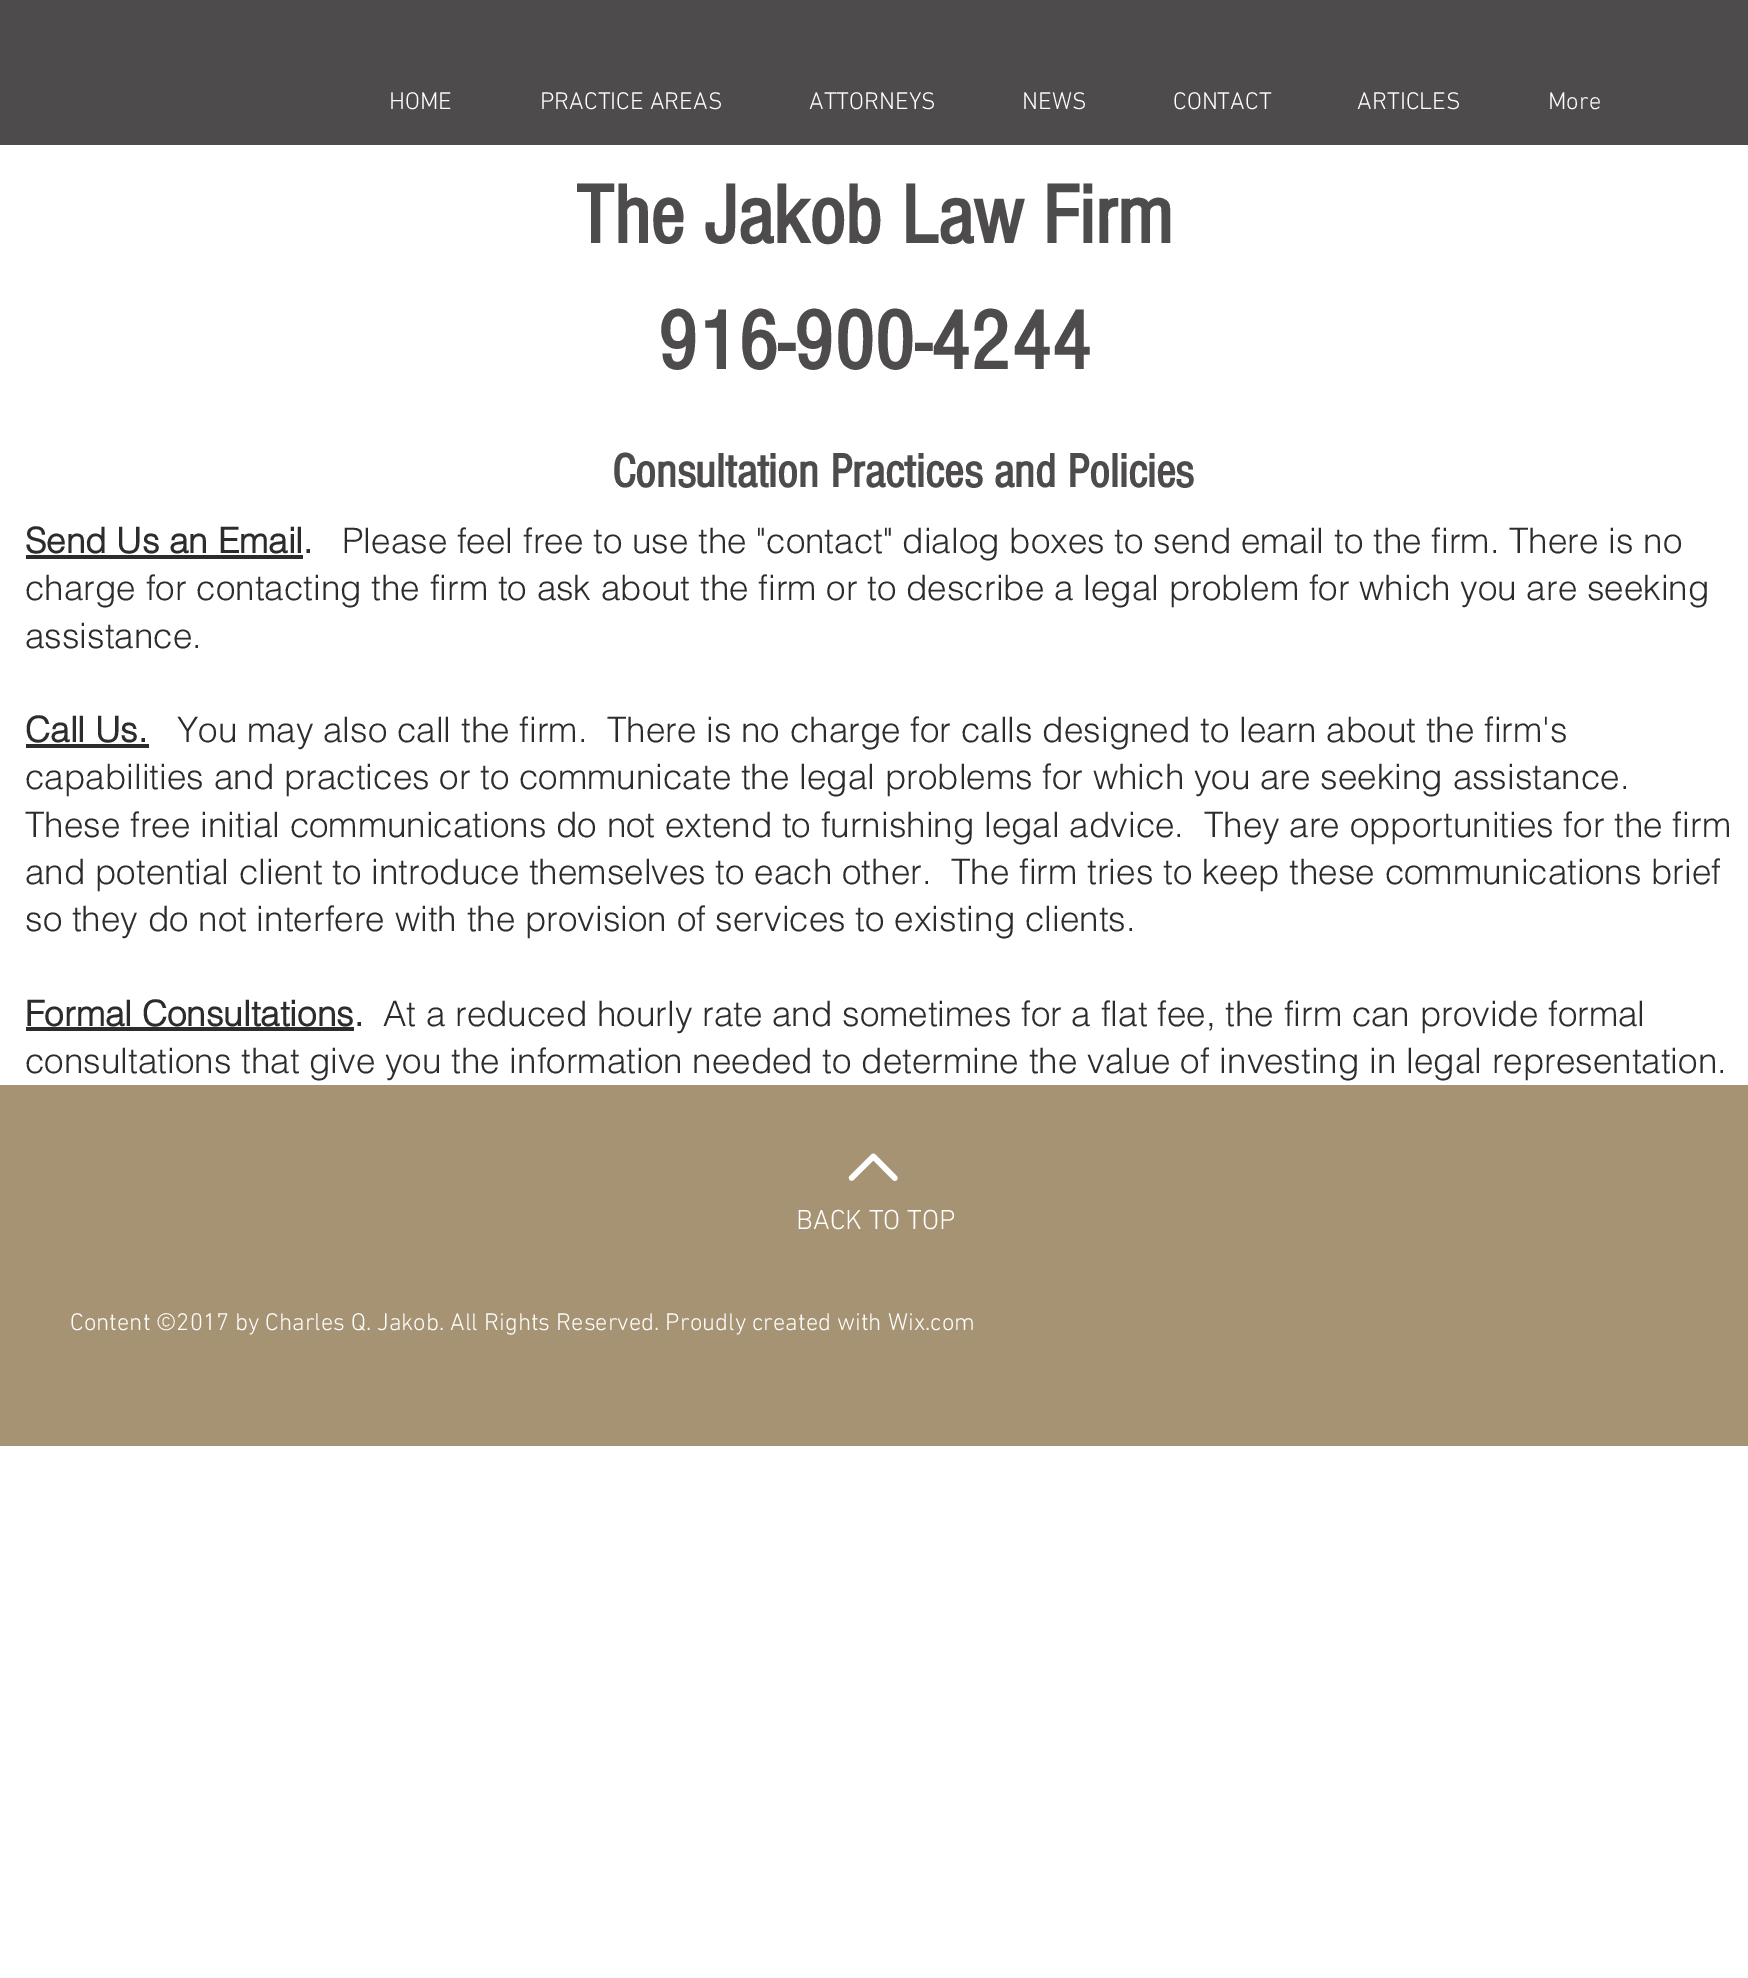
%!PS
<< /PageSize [1748 1978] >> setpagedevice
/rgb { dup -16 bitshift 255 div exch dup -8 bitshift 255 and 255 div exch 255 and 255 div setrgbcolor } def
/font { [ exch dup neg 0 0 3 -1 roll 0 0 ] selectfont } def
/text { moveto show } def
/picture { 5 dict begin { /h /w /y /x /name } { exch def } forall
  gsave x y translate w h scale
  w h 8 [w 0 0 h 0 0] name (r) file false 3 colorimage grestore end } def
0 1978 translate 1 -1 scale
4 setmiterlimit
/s1 { /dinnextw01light-Light 24.5 font 16#FFFFFF rgb } def
/s2 { /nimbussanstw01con-Bold 85.75 font 16#4D4B4B rgb } def
/s3 { /nimbussanstw01con-Bold 49 font 16#4D4B4B rgb } def
/s4 { /helvetica-Bold 35 font 16#2C2C2C rgb } def
/s5 { /helvetica-Light 35 font 16#2C2C2C rgb } def
/s6 { /dinnextw01light-Light 28 font 16#FFFFFF rgb } def
16#FFFFFF rgb
0 0 1748 1978 rectfill
16#4D4B4B rgb
0 0 1748 145 rectfill
s1
(HOME) 389 109 text
(PRACTICE AREAS) 540 109 text
(ATTORNEYS) 809 109 text
(NEWS) 1022 109 text
(CONTACT) 1173 109 text
(ARTICLES) 1357 109 text
(More) 1548 109 text
s2
(The Jakob Law Firm) 575 243 text
(916-900-4244) 657 369 text
s3
(Consultation Practices and Policies) 612 487 text
s4
(Send Us an Email.) 25 553 text
26 555 277 4 rectfill
s5
(Please feel free to use the "contact" dialog boxes to send email to the firm. There is no) 342 553 text
(charge for contacting the firm to ask about the firm or to describe a legal problem for which you are seeking) 25 600 text
(assistance.) 25 648 text
s4
(Call Us.) 25 742 text
26 744 123 4 rectfill
s5
(You may also call the firm.  There is no charge for calls designed to learn about the firm's) 177 742 text
(capabilities and practices or to communicate the legal problems for which you are seeking assistance.) 25 789 text
(These free initial communications do not extend to furnishing legal advice.  They are opportunities for the firm) 25 837 text
(and potential client to introduce themselves to each other.  The firm tries to keep these communications brief) 25 884 text
(so they do not interfere with the provision of services to existing clients.) 25 931 text
s4
(Formal Consultations.) 25 1026 text
26 1027 328 4 rectfill
s5
(At a reduced hourly rate and sometimes for a flat fee, the firm can provide formal) 383 1026 text
(consultations that give you the information needed to determine the value of investing in legal representation.) 25 1073 text
16#A69374 rgb
0 1085 1748 361 rectfill
(pic1.raw) 848 1153 50 28 picture
s6
(BACK TO TOP) 796 1229 text
s1
(Content ©2017 by Charles Q. Jakob. All Rights Reserved. Proudly created with Wix.com) 70 1330 text
showpage
